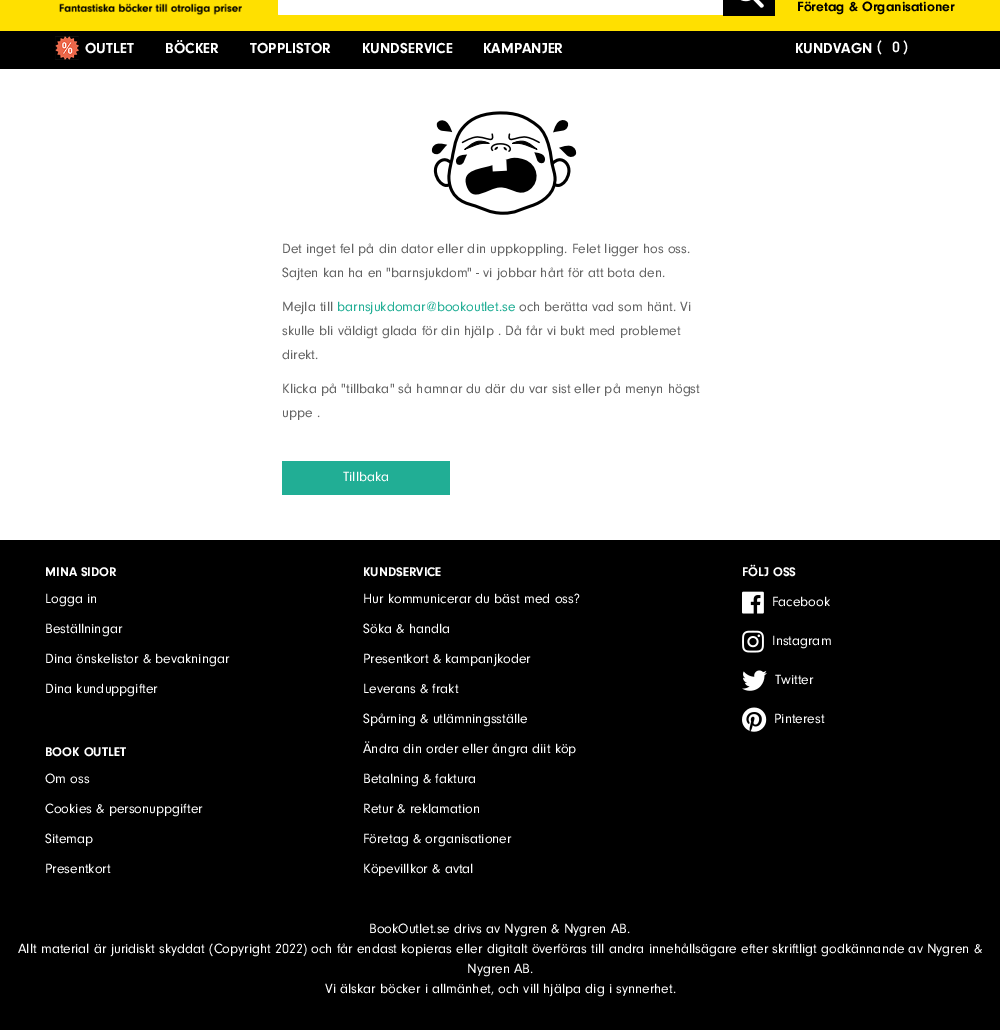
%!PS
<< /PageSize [1000 1033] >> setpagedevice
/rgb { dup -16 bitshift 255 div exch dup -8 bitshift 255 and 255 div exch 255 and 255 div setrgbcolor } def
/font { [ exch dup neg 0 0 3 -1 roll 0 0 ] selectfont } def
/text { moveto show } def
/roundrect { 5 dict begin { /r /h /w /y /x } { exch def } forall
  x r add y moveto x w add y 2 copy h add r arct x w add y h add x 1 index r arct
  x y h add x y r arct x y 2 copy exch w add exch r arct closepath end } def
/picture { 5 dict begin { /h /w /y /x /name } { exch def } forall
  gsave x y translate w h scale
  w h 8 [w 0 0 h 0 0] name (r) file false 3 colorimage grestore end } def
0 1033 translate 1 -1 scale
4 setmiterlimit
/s1 { /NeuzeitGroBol-Regular 14 font 16#000000 rgb } def
/s2 { /NeuzeitGroBol-Regular 15 font 16#FFFFFF rgb } def
/s3 { /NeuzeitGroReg-Bold 15 font 16#FFFFFF rgb } def
/s4 { /NeuzeitGroReg-Regular 14 font 16#636363 rgb } def
/s5 { /NeuzeitGroReg-Regular 14 font 16#21AE95 rgb } def
/s6 { /NeuzeitGroReg-Regular 14 font 16#FFFFFF rgb } def
/s7 { /NeuzeitGroBol-Regular 13 font 16#FFFFFF rgb } def
16#FFFFFF rgb
0 0 1000 1033 rectfill
16#FFE000 rgb
0 0 1000 31 rectfill
(pic1.raw) 59 3 183 12 picture
16#FFFFFF rgb
278 -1 497 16 1 roundrect fill
16#000000 rgb
723 0 52 16 rectfill
(pic2.raw) 740 0 24 8 picture
s1
(Företag & Organisationer) 797 11 text
0 31 1000 38 rectfill
(pic3.raw) 55 36 24 24 picture
s2
(OUTLET) 85 53 text
(BÖCKER) 165 53 text
(TOPPLISTOR) 250 53 text
(KUNDSERVICE) 362 53 text
(KAMPANJER) 483 53 text
(KUNDVAGN) 795 53 text
s3
(\() 877 51 text
(0) 892 52 text
(\)) 903 51 text
(pic4.raw) 431 111 146 104 picture
s4
(Det inget fel på din dator eller din uppkoppling. Felet ligger hos oss.) 282 253 text
(Sajten kan ha en "barnsjukdom" - vi jobbar hårt för att bota den.) 282 277 text
(Mejla till) 282 311 text
s5
(barnsjukdomar@bookoutlet.se) 337 311 text
s4
(och berätta vad som hänt. Vi) 519 311 text
(skulle bli väldigt glada för din hjälp . Då får vi bukt med problemet) 282 335 text
(direkt.) 282 359 text
(Klicka på "tillbaka" så hamnar du där du var sist eller på menyn högst) 282 393 text
(uppe .) 282 417 text
16#21AE95 rgb
282 461 168 34 rectfill
s6
(Tillbaka) 343 481 text
16#000000 rgb
0 540 1000 490 rectfill
s7
(MINA SIDOR) 45 576 text
s6
(Logga in) 45 603 text
(Beställningar) 45 633 text
(Dina önskelistor & bevakningar) 45 663 text
(Dina kunduppgifter) 45 693 text
s7
(BOOK OUTLET) 45 756 text
s6
(Om oss) 45 783 text
(Cookies & personuppgifter) 45 813 text
(Sitemap) 45 843 text
(Presentkort) 45 873 text
s7
(KUNDSERVICE) 363 576 text
s6
(Hur kommunicerar du bäst med oss?) 363 603 text
(Söka & handla) 363 633 text
(Presentkort & kampanjkoder) 363 663 text
(Leverans & frakt) 363 693 text
(Spårning & utlämningsställe) 363 723 text
(Ändra din order eller ångra diit köp) 363 753 text
(Betalning & faktura) 363 783 text
(Retur & reklamation) 363 813 text
(Företag & organisationer) 363 843 text
(Köpevillkor & avtal) 363 873 text
s7
(FÖLJ OSS) 742 576 text
(pic5.raw) 742 591 22 23 picture
s6
(Facebook) 772 606 text
(pic6.raw) 742 630 22 23 picture
(Instagram) 772 645 text
(pic7.raw) 742 670 25 21 picture
(Twitter) 775 684 text
(pic8.raw) 742 707 25 25 picture
(Pinterest) 774 723 text
(BookOutlet.se drivs av Nygren & Nygren AB.) 369 933 text
(Allt material är juridiskt skyddat \(Copyright 2022\) och får endast kopieras eller digitalt överföras till andra innehållsägare efter skriftligt godkännande av Nygren &) 18 953 text
(Nygren AB.) 467 973 text
(Vi älskar böcker i allmänhet, och vill hjälpa dig i synnerhet.) 325 993 text
showpage
